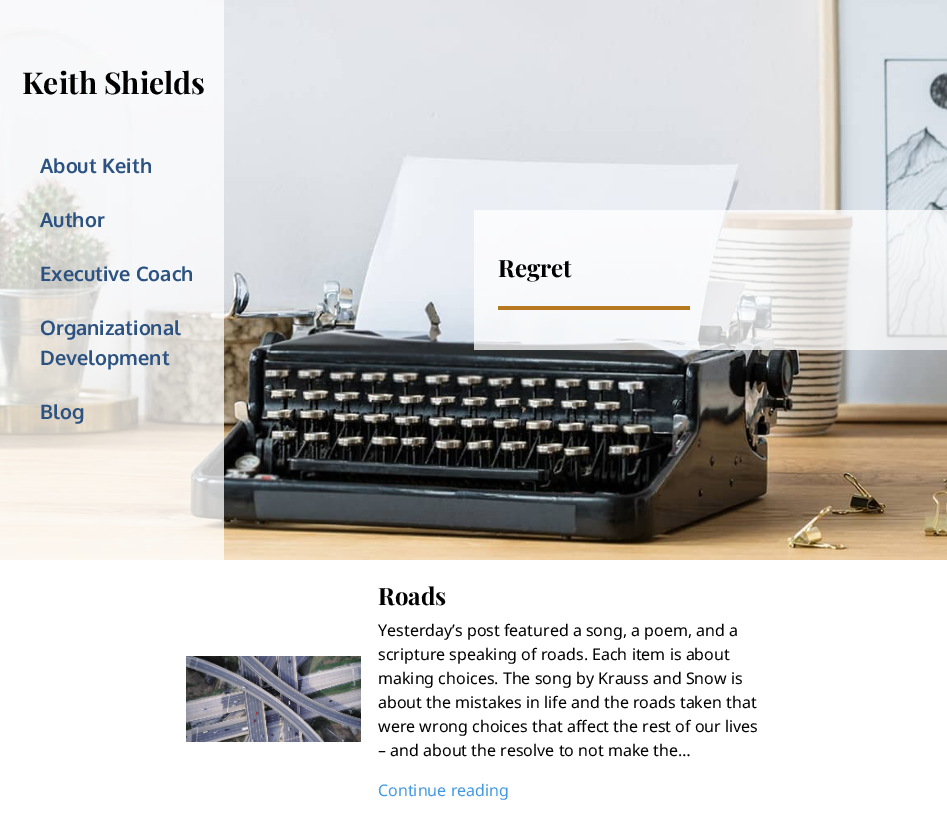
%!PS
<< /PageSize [947 823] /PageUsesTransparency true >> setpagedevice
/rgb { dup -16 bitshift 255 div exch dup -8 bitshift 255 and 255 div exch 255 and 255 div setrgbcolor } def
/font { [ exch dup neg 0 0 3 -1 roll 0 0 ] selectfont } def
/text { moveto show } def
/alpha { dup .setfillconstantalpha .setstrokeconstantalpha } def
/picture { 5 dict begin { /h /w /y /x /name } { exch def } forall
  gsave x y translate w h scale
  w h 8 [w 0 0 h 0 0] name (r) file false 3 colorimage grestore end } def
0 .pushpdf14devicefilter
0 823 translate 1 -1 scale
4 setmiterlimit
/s1 { /PlayfairDisplay-Bold 30 font 16#000000 rgb } def
/s2 { /Oxygen-Bold 20 font 16#2C5282 rgb } def
/s3 { /PlayfairDisplay-Bold 24 font 16#000000 rgb } def
/s4 { /NotoSans-Regular 16 font 16#000000 rgb } def
/s5 { /NotoSans-Regular 16 font 16#4299E1 rgb } def
16#FFFFFF rgb
0 0 947 823 rectfill
(pic1.raw) 0 0 947 560 picture
0.75 alpha
0 0 224 560 rectfill
1 alpha
s1
(Keith Shields) 22 94 text
s2
(About Keith) 40 173 text
(Author) 40 227 text
(Executive Coach) 40 281 text
(Organizational) 40 335 text
(Development) 40 365 text
(Blog) 40 419 text
0.75 alpha
16#FFFFFF rgb
474 210 473 140 rectfill
1 alpha
s3
(Regret) 498 277 text
16#B7791F rgb
498 306 192 4 rectfill
(pic2.raw) 186 656 175 86 picture
s3
(Roads) 378 605 text
s4
(Yesterday’s post featured a song, a poem, and a) 378 636 text
(scripture speaking of roads. Each item is about) 378 660 text
(making choices. The song by Krauss and Snow is) 378 684 text
(about the mistakes in life and the roads taken that) 378 708 text
(were wrong choices that affect the rest of our lives) 378 732 text
(– and about the resolve to not make the…) 378 756 text
s5
(Continue reading) 378 796 text
.poppdf14devicefilter showpage
